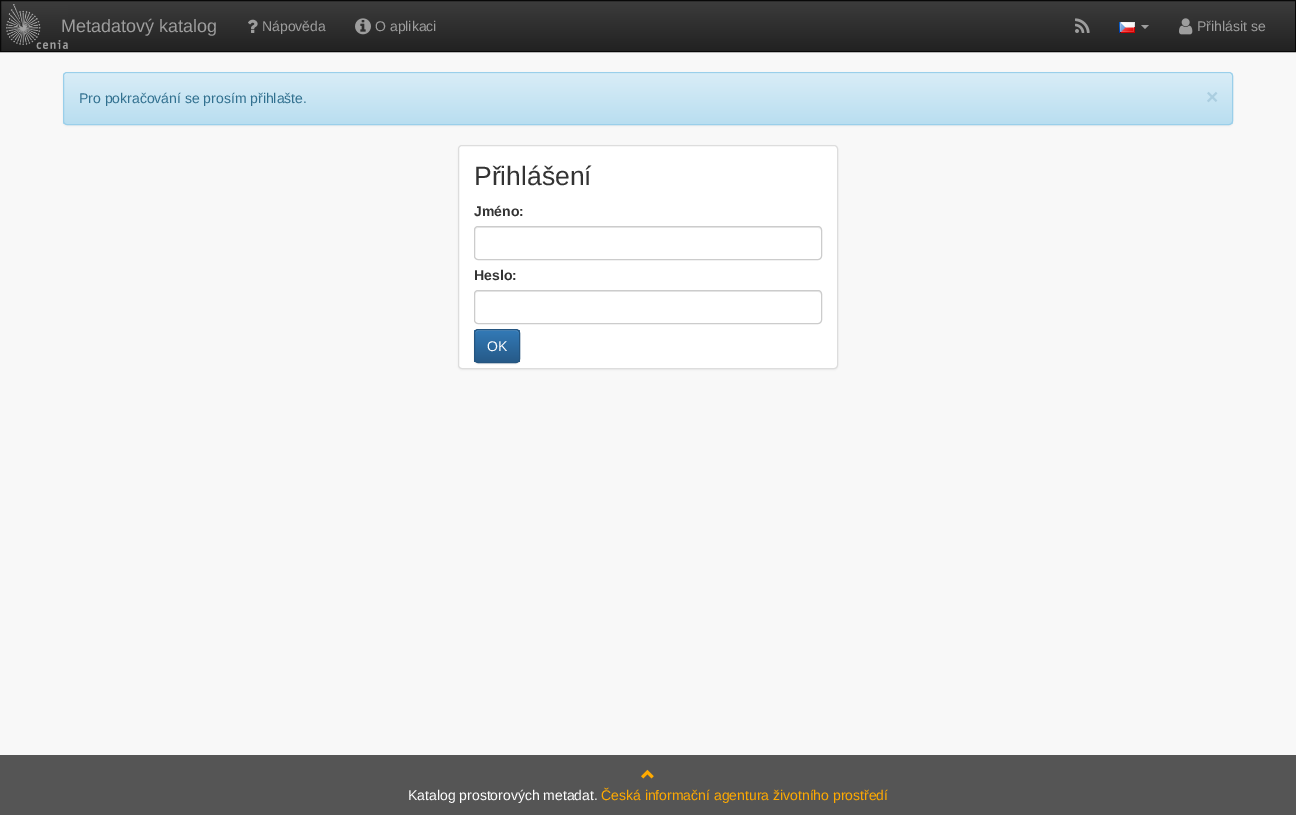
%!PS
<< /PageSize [1296 815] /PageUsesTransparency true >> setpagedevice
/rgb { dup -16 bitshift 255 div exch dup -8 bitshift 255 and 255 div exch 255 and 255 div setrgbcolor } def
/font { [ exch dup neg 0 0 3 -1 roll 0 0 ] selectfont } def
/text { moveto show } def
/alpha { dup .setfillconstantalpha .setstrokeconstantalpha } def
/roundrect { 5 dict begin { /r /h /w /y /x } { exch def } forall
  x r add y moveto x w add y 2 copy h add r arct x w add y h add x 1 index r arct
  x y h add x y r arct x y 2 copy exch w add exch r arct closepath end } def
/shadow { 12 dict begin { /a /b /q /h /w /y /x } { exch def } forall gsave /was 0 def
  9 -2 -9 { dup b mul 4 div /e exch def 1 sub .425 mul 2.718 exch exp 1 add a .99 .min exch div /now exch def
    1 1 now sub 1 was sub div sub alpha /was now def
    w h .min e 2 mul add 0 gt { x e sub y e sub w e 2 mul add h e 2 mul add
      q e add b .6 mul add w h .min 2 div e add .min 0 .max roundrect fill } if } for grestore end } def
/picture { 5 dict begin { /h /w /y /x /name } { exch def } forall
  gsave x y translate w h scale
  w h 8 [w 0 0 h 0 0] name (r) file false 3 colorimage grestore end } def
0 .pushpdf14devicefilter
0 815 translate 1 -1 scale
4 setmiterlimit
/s1 { /LiberationSans-Regular 18 font 16#9D9D9D rgb } def
/s2 { /LiberationSans-Regular 14 font 16#9D9D9D rgb } def
/s3 { /LiberationSans-Regular 14 font 16#31708F rgb } def
/s4 { /LiberationSans-Bold 21 font 16#ABCEE0 rgb } def
/s5 { /LiberationSans-Regular 26.5 font 16#333333 rgb } def
/s6 { /LiberationSans-Bold 14 font 16#333333 rgb } def
/s7 { /LiberationSans-Regular 14 font 16#FFFFFF rgb } def
/s8 { /LiberationSans-Regular 14 font 16#FFAA00 rgb } def
16#F8F8F8 rgb
0 0 1296 815 rectfill
gsave 1 1 moveto 1295 1 lineto 1295 51 lineto 1 51 lineto closepath clip newpath
<< /ShadingType 2 /ColorSpace /DeviceRGB /Coords [648 1 648 51] /Extend [true true] /Function << /FunctionType 2 /Domain [0 1] /C0 [0.235 0.235 0.235] /C1 [0.133 0.133 0.133] /N 1 >> >> shfill grestore
16#080808 rgb
0.5 0.5 1295 51 rectstroke
s1
(Metadatový katalog) 61 32 text
(pic1.raw) 6 4 62 45 picture
(pic2.raw) 248 19 10 14 picture
s2
(Nápověda) 262 31 text
(pic3.raw) 355 18 16 17 picture
(O aplikaci) 375 31 text
(pic4.raw) 1075 18 15 15 picture
(pic5.raw) 1119 22 16 11 picture
1141 25 moveto 1149 25 lineto 1145 29 lineto closepath fill
(pic6.raw) 1179 18 14 17 picture
(Přihlásit se) 1197 31 text
16#000000 rgb
63 73 1170 53 4 1 0.05 shadow
gsave
63 72 1170 53 4 roundrect clip newpath
gsave 63 73 moveto 1233 73 lineto 1233 124 lineto 63 124 lineto closepath clip newpath
<< /ShadingType 2 /ColorSpace /DeviceRGB /Coords [648 73 648 124] /Extend [true true] /Function << /FunctionType 2 /Domain [0 1] /C0 [0.851 0.929 0.969] /C1 [0.725 0.871 0.941] /N 1 >> >> shfill grestore
grestore
16#E2F2F9 rgb
67 74 moveto 1229 74 lineto 1231 74 1232 75 1232 77 curveto 1232 76 lineto 1232 74 1231 73 1229 73 curveto 67 73 lineto 65 73 64 74 64 76 curveto 64 77 lineto 64 75 65 74 67 74 curveto closepath fill
16#9ACFEA rgb
63.5 72.5 1169 52 3.5 roundrect stroke
s3
(Pro pokračování se prosím přihlašte.) 79 103 text
s4
(×) 1206 104 text
16#000000 rgb
458 146 380 224 4 1 0.05 shadow
16#FFFFFF rgb
458.5 145.5 379 223 3.5 roundrect gsave fill grestore
16#DDDDDD rgb
stroke
s5
(Přihlášení) 474 185 text
s6
(Jméno:) 474 216 text
16#ECECEC rgb
478 228 moveto 818 228 lineto 820 228 821 229 821 231 curveto 821 229 820 227 818 227 curveto 478 227 lineto 476 228 lineto 475 231 lineto 475 229 476 228 478 228 curveto closepath fill
16#CCCCCC rgb
474.5 226.5 347 33 3.5 roundrect stroke
s6
(Heslo:) 474 280 text
16#ECECEC rgb
478 292 moveto 818 292 lineto 820 292 821 293 821 295 curveto 821 293 820 291 818 291 curveto 478 291 lineto 476 292 lineto 475 295 lineto 475 293 476 292 478 292 curveto closepath fill
16#CCCCCC rgb
474.5 290.5 347 33 3.5 roundrect stroke
16#000000 rgb
474 330 46 34 4 0.5 0.07 shadow
gsave
474 329 46 34 4 roundrect clip newpath
gsave 474 330 moveto 520 330 lineto 520 362 lineto 474 362 lineto closepath clip newpath
<< /ShadingType 2 /ColorSpace /DeviceRGB /Coords [497 330 497 362] /Extend [true true] /Function << /FunctionType 2 /Domain [0 1] /C0 [0.2 0.478 0.718] /C1 [0.149 0.353 0.533] /N 1 >> >> shfill grestore
grestore
16#528EC1 rgb
478 331 moveto 516 331 lineto 518 331 519 332 519 334 curveto 519 329 514 330 510 330 curveto 484 330 lineto 480 330 475 329 475 334 curveto 475 332 476 331 478 331 curveto closepath fill
16#245580 rgb
474.5 329.5 45 33 3.5 roundrect stroke
s7
(OK) 487 351 text
16#555555 rgb
0 755 1296 60 rectfill
(pic7.raw) 641 769 13 10 picture
s7
(Katalog prostorových metadat.) 408 800 text
s8
(Česká informační agentura životního prostředí) 601 800 text
.poppdf14devicefilter showpage
